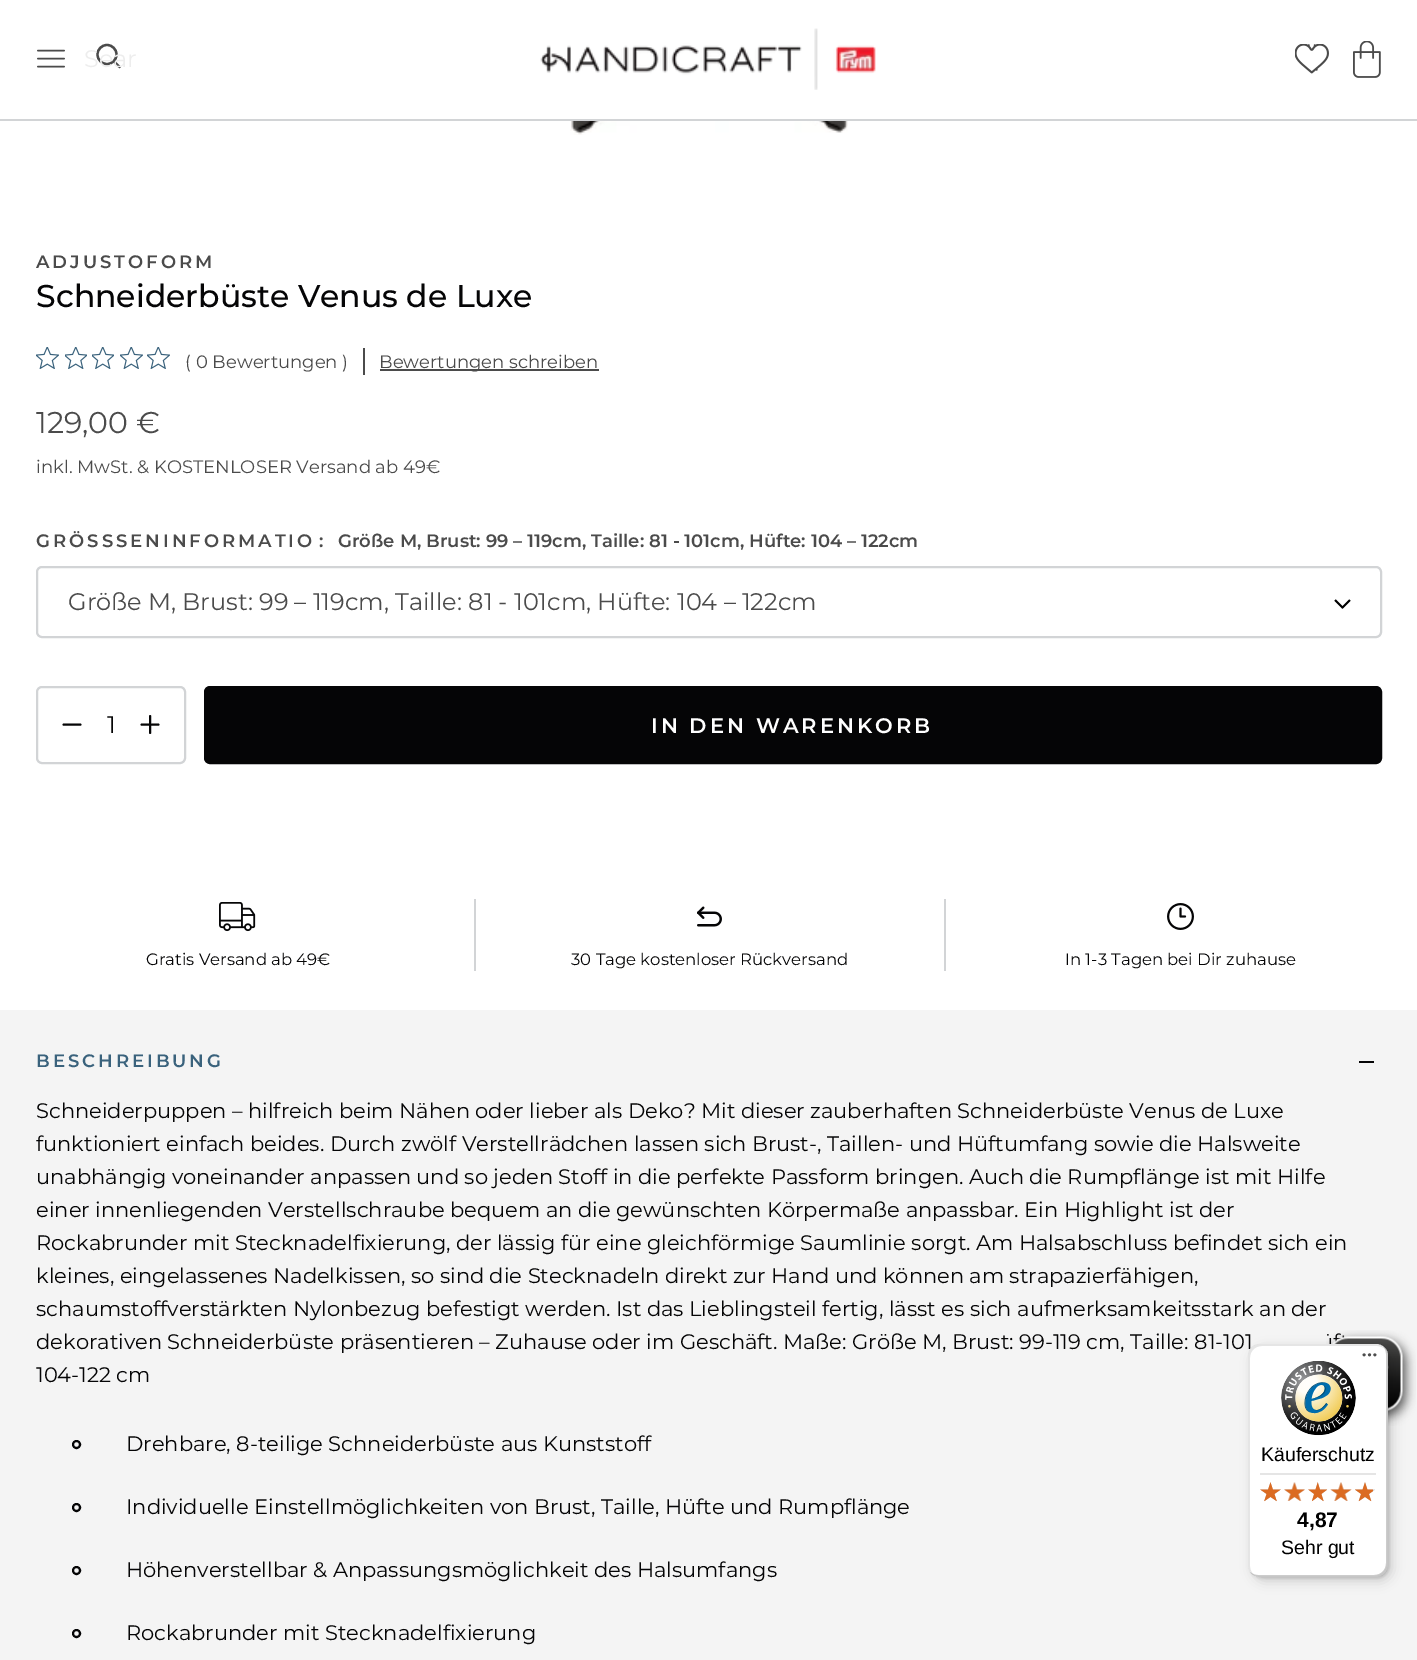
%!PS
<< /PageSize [1417 1660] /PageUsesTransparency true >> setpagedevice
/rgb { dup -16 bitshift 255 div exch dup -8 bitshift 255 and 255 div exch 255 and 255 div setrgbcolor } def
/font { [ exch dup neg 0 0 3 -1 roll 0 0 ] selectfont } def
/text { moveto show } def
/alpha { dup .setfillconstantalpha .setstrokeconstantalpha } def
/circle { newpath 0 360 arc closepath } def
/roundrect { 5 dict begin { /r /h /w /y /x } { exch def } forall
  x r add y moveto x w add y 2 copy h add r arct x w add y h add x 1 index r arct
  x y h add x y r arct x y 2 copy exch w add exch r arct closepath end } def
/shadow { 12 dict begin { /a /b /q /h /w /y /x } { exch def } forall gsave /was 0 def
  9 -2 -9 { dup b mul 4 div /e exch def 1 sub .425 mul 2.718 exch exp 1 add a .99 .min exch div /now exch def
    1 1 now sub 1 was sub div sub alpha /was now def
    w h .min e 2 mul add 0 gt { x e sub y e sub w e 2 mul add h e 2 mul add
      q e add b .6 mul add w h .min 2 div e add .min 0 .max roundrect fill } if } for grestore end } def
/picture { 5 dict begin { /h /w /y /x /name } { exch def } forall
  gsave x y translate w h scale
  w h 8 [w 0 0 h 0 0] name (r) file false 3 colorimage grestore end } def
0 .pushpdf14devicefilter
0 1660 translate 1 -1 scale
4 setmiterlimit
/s1 { /Montserrat-Thin 24 font 16#EDEDED rgb } def
/s2 { /Montserrat-Medium 31.5 font 16#050506 rgb } def
/s3 { /Montserrat-Thin 18 font 16#4B4B4B rgb } def
/s4 { /Montserrat-Thin 30 font 16#4B4B4B rgb } def
/s5 { /Montserrat-SemiBold 18 font 16#4B4B4B rgb } def
/s6 { /Montserrat-Thin 24 font 16#4B4B4B rgb } def
/s7 { /Montserrat-Thin 24 font 16#050506 rgb } def
/s8 { /Montserrat-Thin 16.5 font 16#050506 rgb } def
/s9 { /Montserrat-Thin 21 font 16#050506 rgb } def
/s10 { /LiberationSans-Regular 19.5 font 16#000000 rgb } def
/s11 { /LiberationSans-Bold 21 font 16#000000 rgb } def
16#FFFFFF rgb
0 0 1417 1660 rectfill
16#D2D4D6 rgb
0 119 1417 2 rectfill
16#4B4B4B rgb
1.6 setlinewidth
1 setlinecap
38 50.5 moveto 64 50.5 lineto 38 58.5 moveto 64 58.5 lineto 38 66.5 moveto 64 66.5 lineto stroke
2.3 setlinewidth
0 setlinecap
107 54.5 9.5 circle stroke
1 setlinecap
119.5 67 moveto 114.5 62 lineto stroke
s1
(Sear) 84 67 text
(pic1.raw) 540 28 336 62 picture
(pic2.raw) 1295 44 34 30 picture
(pic3.raw) 1353 41 28 37 picture
(pic4.raw) 570 121 278 14 picture
/Montserrat-SemiBold 18 font
16#4B4B4B rgb
36 268 moveto 3 0 (ADJUSTOFORM) ashow
s2
(Schneiderbüste Venus de Luxe) 36 307 text
(pic5.raw) 36 347 23 22 picture
(pic6.raw) 65 347 22 22 picture
(pic6.raw) 92 347 22 22 picture
(pic5.raw) 120 347 23 22 picture
(pic5.raw) 147 347 23 22 picture
s3
(\( 0 Bewertungen \)) 185 368 text
363 348 2 27 rectfill
380 369 219 2 rectfill
(Bewertungen schreiben) 379 368 text
s4
(129,00 €) 36 433 text
s3
(inkl. MwSt. & KOSTENLOSER Versand ab 49€) 36 473 text
/Montserrat-SemiBold 18 font
36 547 moveto 3 0 (GRÖSSSENINFORMATIO) ashow
319 547 moveto 3 0 (:) ashow
(Größe M, Brust: 99 – 119cm, Taille: 81 - 101cm, Hüfte: 104 – 122cm) 338 547 text
16#D2D4D6 rgb
2 setlinewidth
0 setlinecap
37 567 1344 70 5 roundrect stroke
s6
(Größe M, Brust: 99 – 119cm, Taille: 81 - 101cm, Hüfte: 104 – 122cm) 68 610 text
(pic7.raw) 1334 599 17 10 picture
16#D2D4D6 rgb
37 687 148 76 5 roundrect stroke
16#050506 rgb
1.9 setlinewidth
1 setlinecap
80.5 724.5 moveto 63.5 724.5 lineto stroke
(1) 107 733 text
158.5 724.5 moveto 141.5 724.5 lineto 150 716 moveto 150 733 lineto stroke
205.5 687.5 1175 75 4.5 roundrect gsave fill grestore
3 setlinewidth
0 setlinecap
stroke
/Montserrat-SemiBold 21 font
16#FFFFFF rgb
651 733 moveto 3 0 (IN DEN WARENKORB) ashow
(pic8.raw) 219 902 37 30 picture
s8
(Gratis Versand ab 49€) 146 965 text
16#D2D4D6 rgb
474 899 2 72 rectfill
(pic9.raw) 697 906 25 21 picture
s8
(30 Tage kostenloser Rückversand) 571 965 text
16#D2D4D6 rgb
944 899 2 72 rectfill
(pic10.raw) 1167 903 27 27 picture
s8
(In 1-3 Tagen bei Dir zuhause) 1065 965 text
16#F4F4F4 rgb
0 1010 1417 650 rectfill
/Montserrat-SemiBold 18 font
16#3A627C rgb
36 1067 moveto 3 0 (BESCHREIBUNG) ashow
16#050506 rgb
1359 1061 15 2 rectfill
s9
(Schneiderpuppen – hilfreich beim Nähen oder lieber als Deko? Mit dieser zauberhaften Schneiderbüste Venus de Luxe) 36 1118 text
(funktioniert einfach beides. Durch zwölf Verstellrädchen lassen sich Brust-, Taillen- und Hüftumfang sowie die Halsweite) 36 1151 text
(unabhängig voneinander anpassen und so jeden Stoff in die perfekte Passform bringen. Auch die Rumpflänge ist mit Hilfe) 36 1184 text
(einer innenliegenden Verstellschraube bequem an die gewünschten Körpermaße anpassbar. Ein Highlight ist der) 36 1217 text
(Rockabrunder mit Stecknadelfixierung, der lässig für eine gleichförmige Saumlinie sorgt. Am Halsabschluss befindet sich ein) 36 1250 text
(kleines, eingelassenes Nadelkissen, so sind die Stecknadeln direkt zur Hand und können am strapazierfähigen,) 36 1283 text
(schaumstoffverstärkten Nylonbezug befestigt werden. Ist das Lieblingsteil fertig, lässt es sich aufmerksamkeitsstark an der) 36 1316 text
(dekorativen Schneiderbüste präsentieren – Zuhause oder im Geschäft. Maße: Größe M, Brust: 99-119 cm, Taille: 81-101) 36 1349 text
(104-122 cm) 36 1382 text
2 setlinewidth
76.5 1444.5 3.5 circle stroke
(Drehbare, 8-teilige Schneiderbüste aus Kunststoff) 126 1451 text
76.5 1507.5 3.5 circle stroke
(Individuelle Einstellmöglichkeiten von Brust, Taille, Hüfte und Rumpflänge) 126 1514 text
76.5 1570.5 3.5 circle stroke
(Höhenverstellbar & Anpassungsmöglichkeit des Halsumfangs) 126 1577 text
76.5 1633.5 3.5 circle stroke
(Rockabrunder mit Stecknadelfixierung) 126 1640 text
(pic11.raw) 1326 1330 90 96 picture
16#000000 rgb
1253 1349 139 232 12 6 0.15 shadow
1250 1346 139 232 12 1.5 0.15 shadow
16#FFFFFF rgb
1248 1344 140 233 12 roundrect fill
0.1 alpha
16#000000 rgb
1262 1346 moveto 1377 1346 lineto 1381 1346 1385 1348 1387 1351 curveto 1385 1347 1381 1344 1376 1344 curveto 1260 1344 lineto 1253 1344 1248 1349 1248 1356 curveto 1248 1565 lineto 1248 1570 1251 1574 1255 1576 curveto 1252 1574 1250 1570 1250 1566 curveto 1250 1358 lineto 1250 1351 1255 1346 1262 1346 curveto closepath fill
0.2 alpha
1250 1572 moveto 1253 1575 1256 1577 1260 1577 curveto 1376 1577 lineto 1383 1577 1388 1572 1388 1565 curveto 1388 1356 lineto 1388 1352 1386 1349 1383 1346 curveto 1385 1349 1386 1351 1386 1354 curveto 1386 1563 lineto 1386 1570 1381 1575 1374 1575 curveto 1258 1575 lineto 1255 1575 1253 1574 1250 1572 curveto closepath fill
16#323232 rgb
1251 1573 moveto 1253 1575 1256 1577 1260 1577 curveto 1376 1577 lineto 1383 1577 1388 1572 1388 1565 curveto 1388 1356 lineto 1388 1352 1386 1349 1384 1347 curveto 1386 1349 1387 1352 1387 1355 curveto 1387 1564 lineto 1387 1570 1381 1576 1375 1576 curveto 1259 1576 lineto 1256 1576 1253 1575 1251 1573 curveto closepath fill
0.3 alpha
16#FFFFFF rgb
1250 1571 moveto 1252 1575 1255 1577 1260 1577 curveto 1376 1577 lineto 1383 1577 1388 1572 1388 1565 curveto 1388 1356 lineto 1388 1351 1386 1348 1382 1346 curveto 1385 1348 1387 1351 1387 1355 curveto 1387 1564 lineto 1387 1570 1381 1576 1375 1576 curveto 1259 1576 lineto 1255 1576 1252 1574 1250 1571 curveto closepath fill
1 alpha
(pic12.raw) 1362 1353 15 4 picture
(pic13.raw) 1281 1361 75 75 picture
s10
(Käuferschutz) 1261 1461 text
16#E5E5E5 rgb
1260 1473 116 2 rectfill
(pic14.raw) 1260 1482 21 19 picture
(pic14.raw) 1284 1482 21 19 picture
(pic15.raw) 1308 1482 19 19 picture
(pic16.raw) 1331 1482 20 19 picture
(pic16.raw) 1355 1482 20 19 picture
(pic17.raw) 1260 1482 21 20 picture
(pic18.raw) 1284 1482 21 19 picture
(pic19.raw) 1308 1482 20 20 picture
(pic20.raw) 1330 1482 22 19 picture
(pic21.raw) 1355 1482 18 20 picture
s11
(4,87) 1297 1527 text
s10
(Sehr gut) 1281 1554 text
.poppdf14devicefilter showpage
